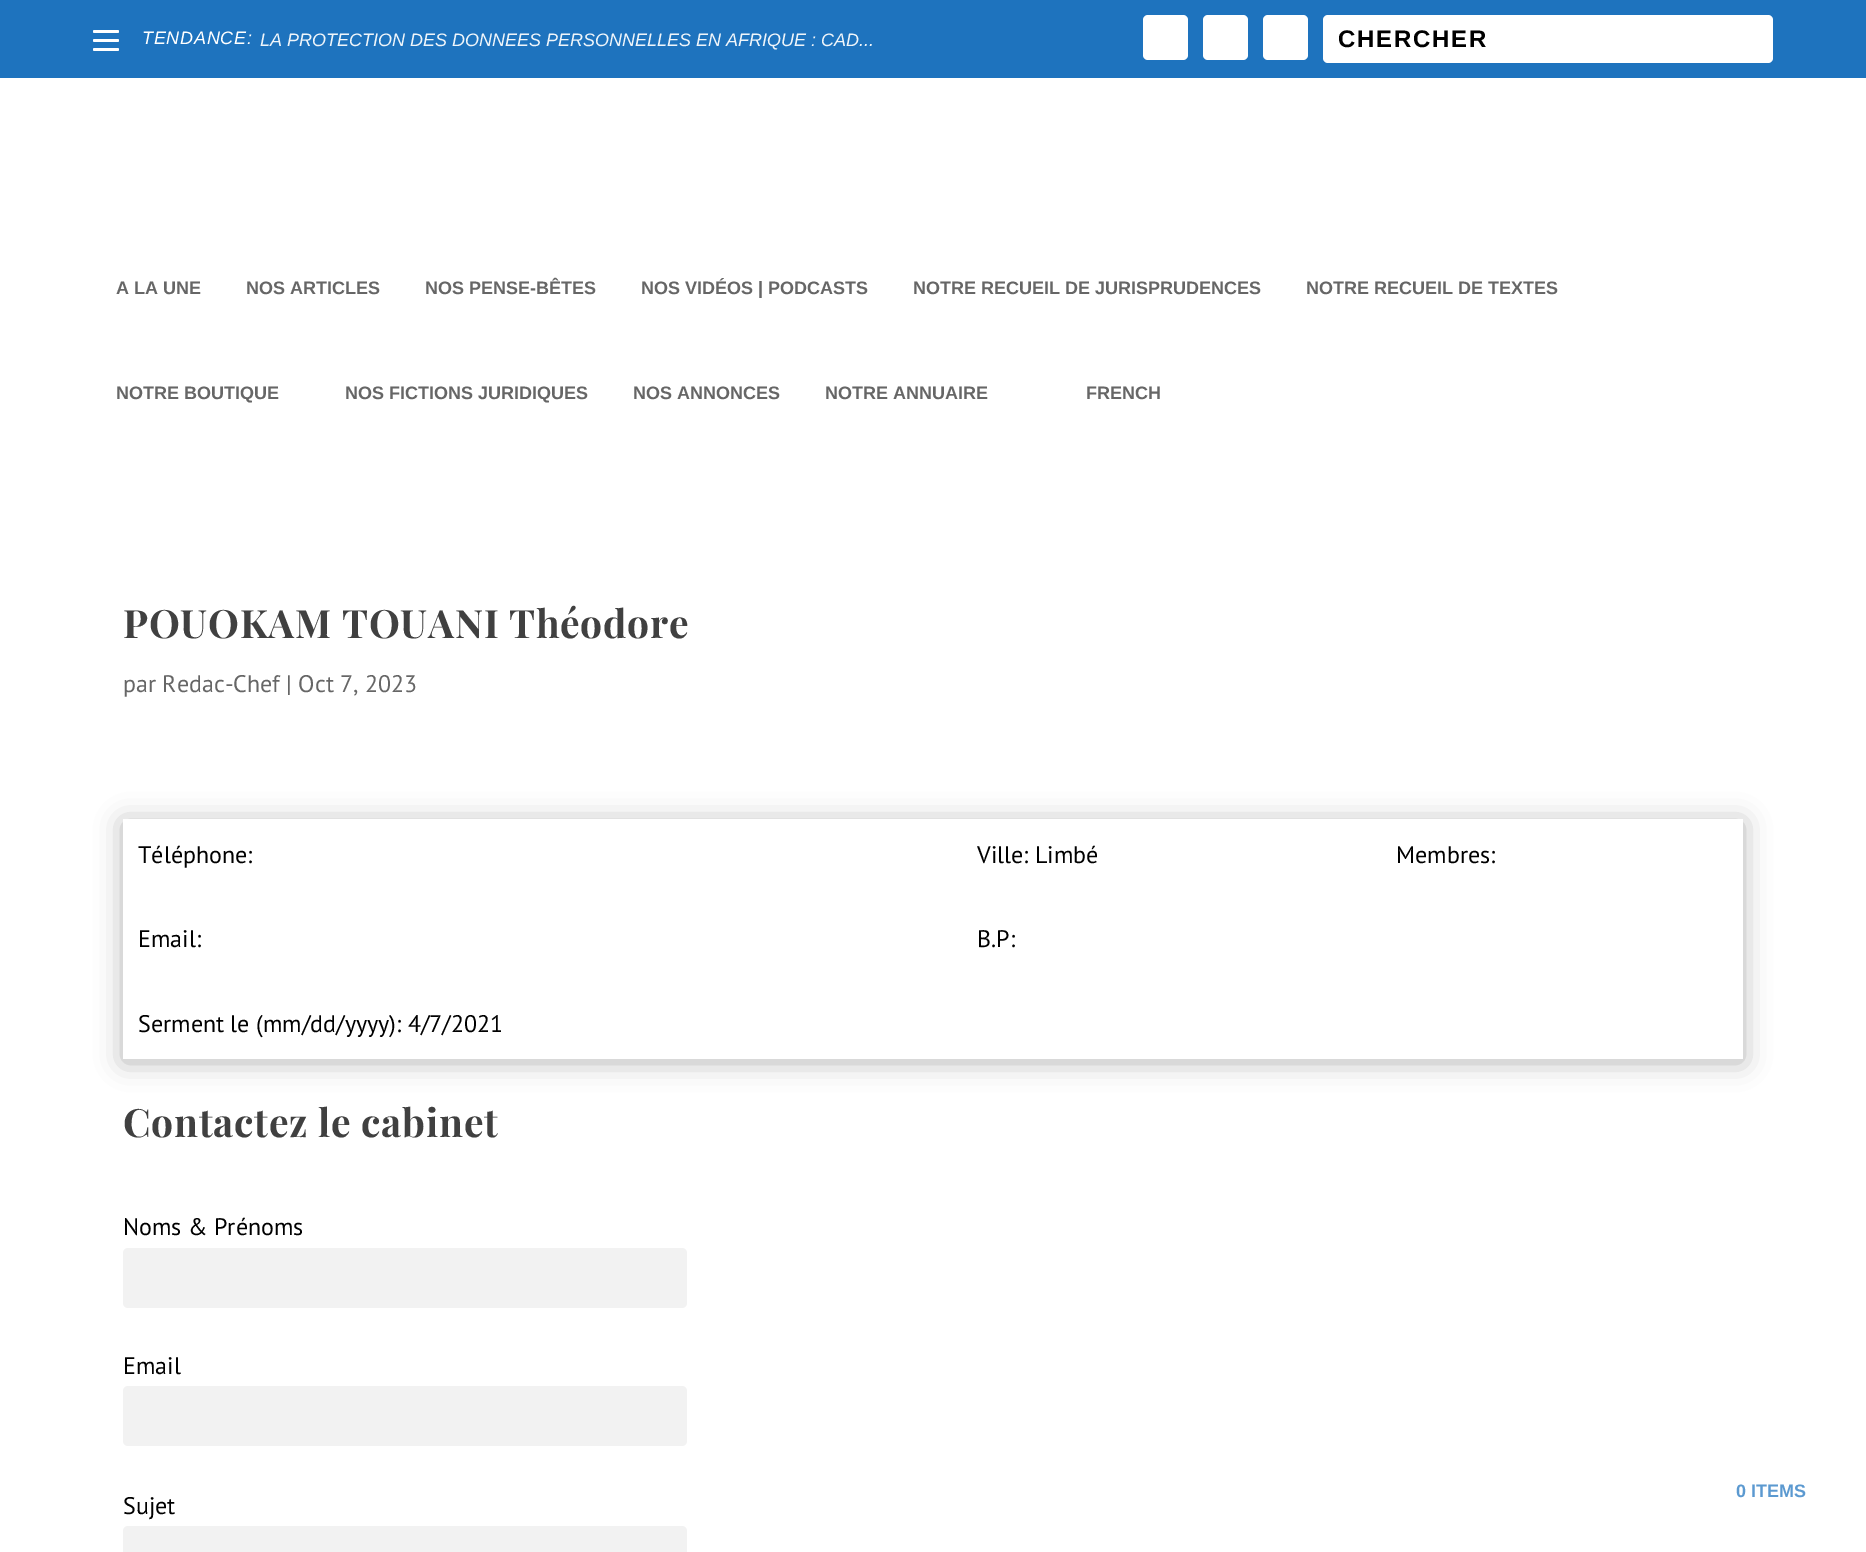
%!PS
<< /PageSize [1866 1552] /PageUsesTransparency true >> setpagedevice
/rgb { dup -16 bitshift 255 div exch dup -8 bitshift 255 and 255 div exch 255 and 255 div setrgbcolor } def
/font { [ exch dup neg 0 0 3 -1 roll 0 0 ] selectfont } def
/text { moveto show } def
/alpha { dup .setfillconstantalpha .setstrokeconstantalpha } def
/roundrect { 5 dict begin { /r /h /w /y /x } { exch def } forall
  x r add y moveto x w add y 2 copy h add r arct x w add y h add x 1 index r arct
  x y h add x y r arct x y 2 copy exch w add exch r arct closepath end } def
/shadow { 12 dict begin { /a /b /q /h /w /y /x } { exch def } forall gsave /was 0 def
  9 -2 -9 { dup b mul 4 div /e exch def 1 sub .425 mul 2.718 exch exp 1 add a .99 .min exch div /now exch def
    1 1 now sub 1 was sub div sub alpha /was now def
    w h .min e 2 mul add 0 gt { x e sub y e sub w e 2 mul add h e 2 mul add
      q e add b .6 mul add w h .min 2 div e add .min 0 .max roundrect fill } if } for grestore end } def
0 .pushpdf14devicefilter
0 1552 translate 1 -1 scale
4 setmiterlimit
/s1 { /LiberationSans-Italic 18 font 16#EFF5FA rgb } def
/s2 { /LiberationSans-Bold 18 font 16#5B99D0 rgb } def
/s3 { /LiberationSans-Bold 18 font 16#666666 rgb } def
/s4 { /PTSans-Regular 24 font 16#666666 rgb } def
/s5 { /PTSans-Regular 24 font 16#000000 rgb } def
16#FFFFFF rgb
0 0 1866 1552 rectfill
16#1E73BE rgb
0 0 1866 78 rectfill
16#FFFFFF rgb
93 30 26 3 1.5 roundrect fill
93 39 26 3 1.5 roundrect fill
93 48 26 3 1.5 roundrect fill
/LiberationSans-Italic 18 font
142 44 moveto 0.75 0 (TENDANCE:) ashow
s1
(LA PROTECTION DES DONNEES PERSONNELLES EN AFRIQUE : CAD...) 260 46 text
16#FFFFFF rgb
1143 15 45 45 5 roundrect fill
1203 15 45 45 5 roundrect fill
1263 15 45 45 5 roundrect fill
1323 15 450 48 5 roundrect fill
/LiberationSans-Bold 24 font
16#000000 rgb
1338 47 moveto 1.75 0 (CHERCHER) ashow
s2
(0 ITEMS) 1736 1497 text
s3
(A LA UNE) 116 294 text
(NOS ARTICLES) 246 294 text
(NOS PENSE-BÊTES) 425 294 text
(NOS VIDÉOS | PODCASTS) 641 294 text
(NOTRE RECUEIL DE JURISPRUDENCES) 913 294 text
(NOTRE RECUEIL DE TEXTES) 1306 294 text
(NOTRE BOUTIQUE) 116 399 text
(NOS FICTIONS JURIDIQUES) 345 399 text
(NOS ANNONCES) 633 399 text
(NOTRE ANNUAIRE) 825 399 text
(FRENCH) 1086 399 text
/PlayfairDisplay-Bold 39 font
16#404040 rgb
123 638 moveto 0.75 0 (POUOKAM TOUANI Théodore) ashow
s4
(par Redac-Chef | Oct 7, 2023) 123 692 text
gsave
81 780 moveto 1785 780 lineto 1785 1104 lineto 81 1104 lineto closepath 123 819 moveto 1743 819 lineto 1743 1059 lineto 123 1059 lineto closepath eoclip newpath
16#000000 rgb
123 822 1620 240 0 13.5 0.3 shadow
grestore
s5
(Téléphone:) 138 863 text
(Email:) 138 947 text
(Serment le \(mm/dd/yyyy\): 4/7/2021) 138 1032 text
(Ville: Limbé) 977 863 text
(B.P:) 977 947 text
(Membres:) 1396 863 text
/PlayfairDisplay-Bold 39 font
16#404040 rgb
123 1137 moveto 0.75 0 (Contactez le cabinet) ashow
s5
(Noms & Prénoms) 123 1235 text
16#F2F2F2 rgb
123 1248 564 60 5 roundrect fill
s5
(Email) 123 1374 text
16#F2F2F2 rgb
123 1386 564 60 5 roundrect fill
s5
(Sujet) 123 1514 text
16#F2F2F2 rgb
123 1526 564 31 5 roundrect fill
.poppdf14devicefilter showpage
